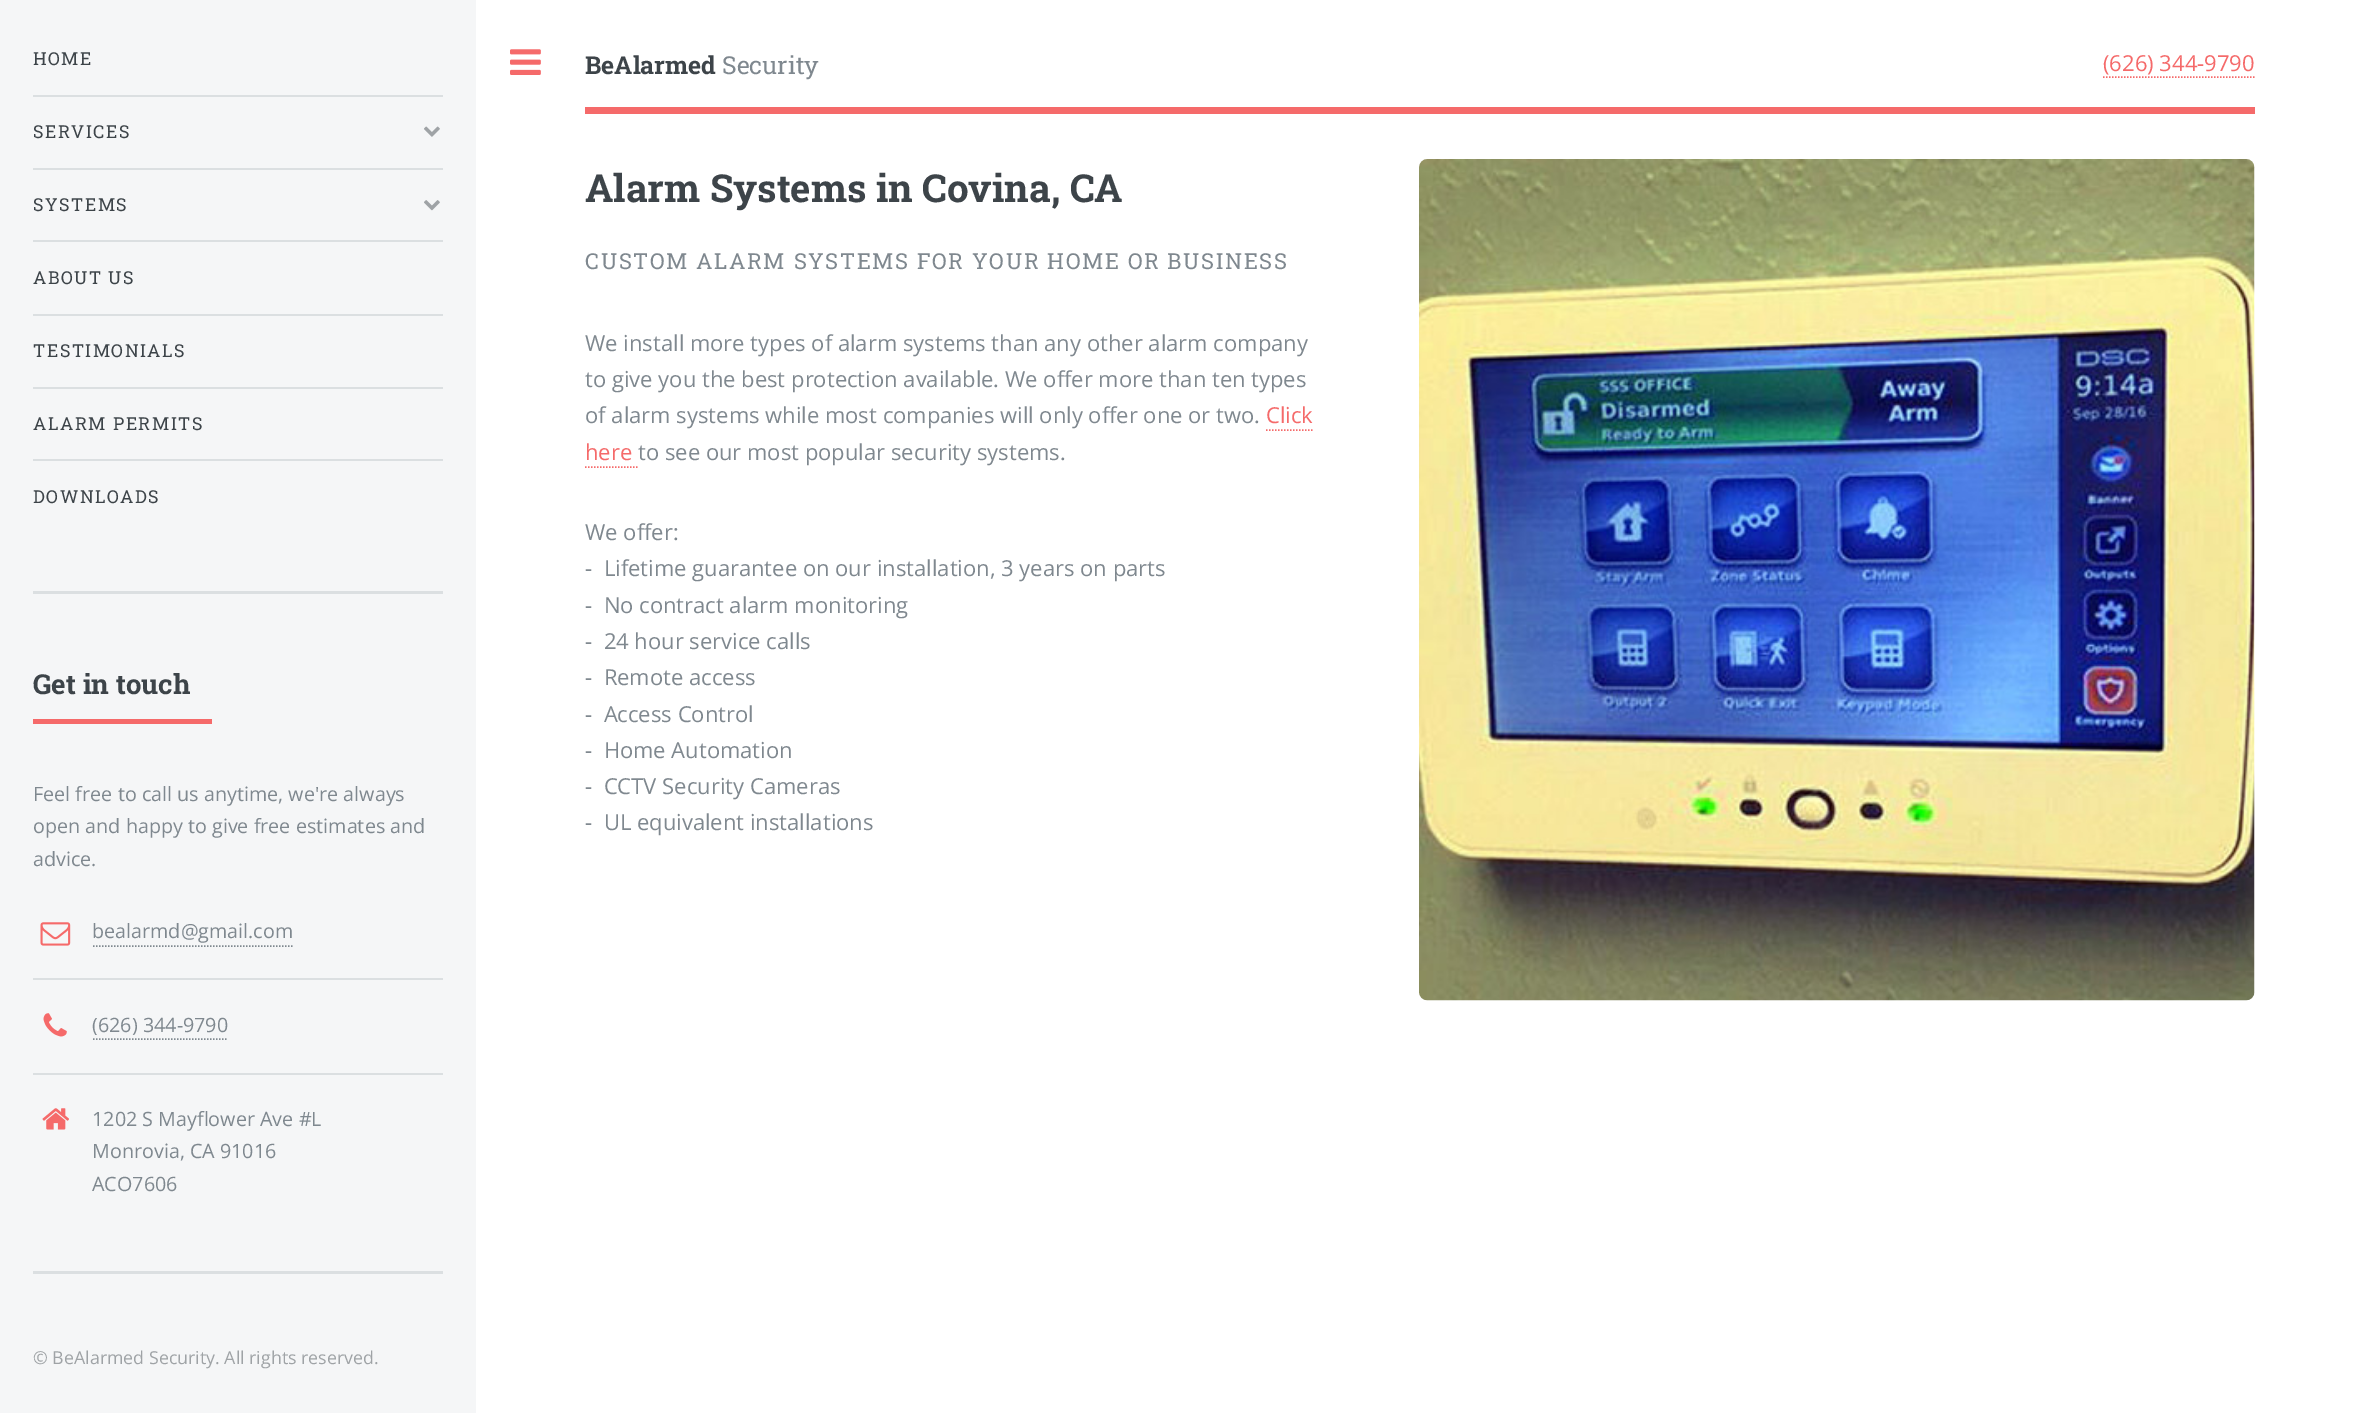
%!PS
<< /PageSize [2364 1413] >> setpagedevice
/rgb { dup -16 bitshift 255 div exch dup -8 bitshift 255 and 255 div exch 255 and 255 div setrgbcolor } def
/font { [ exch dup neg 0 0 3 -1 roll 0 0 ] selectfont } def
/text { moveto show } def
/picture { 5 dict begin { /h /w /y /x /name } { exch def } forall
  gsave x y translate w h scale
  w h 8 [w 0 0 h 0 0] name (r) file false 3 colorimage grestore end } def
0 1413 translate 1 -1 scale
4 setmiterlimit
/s1 { /RobotoSlab-Bold 27.5 font 16#3D4449 rgb } def
/s2 { /OpenSans-Regular 19.75 font 16#7F888F rgb } def
/s3 { /OpenSans-Regular 17.8 font 16#9FA3A6 rgb } def
/s4 { /RobotoSlab-Bold 24.75 font 16#3D4449 rgb } def
/s5 { /RobotoSlab-Regular 24.75 font 16#7F888F rgb } def
/s6 { /OpenSans-Regular 22 font 16#F56A6A rgb } def
/s7 { /RobotoSlab-Bold 38.5 font 16#3D4449 rgb } def
/s8 { /OpenSans-Regular 22 font 16#7F888F rgb } def
16#FFFFFF rgb
0 0 2364 1413 rectfill
16#F5F6F7 rgb
0 0 476 1413 rectfill
16#DBDFE1 rgb
33 591 410 3 rectfill
/RobotoSlab-Regular 17.8 font
16#3D4449 rgb
33 65 moveto 1.5 0 (HOME) ashow
16#DBDFE1 rgb
33 95 410 2 rectfill
16#3D4449 rgb
33 138 moveto 1.5 0 (SERVICES) ashow
(pic1.raw) 424 126 16 11 picture
16#DBDFE1 rgb
33 168 410 2 rectfill
16#3D4449 rgb
33 211 moveto 1.5 0 (SYSTEMS) ashow
(pic2.raw) 424 200 16 11 picture
16#DBDFE1 rgb
33 240 410 2 rectfill
16#3D4449 rgb
33 284 moveto 1.5 0 (ABOUT US) ashow
16#DBDFE1 rgb
33 314 410 2 rectfill
16#3D4449 rgb
33 357 moveto 1.5 0 (TESTIMONIALS) ashow
16#DBDFE1 rgb
33 387 410 2 rectfill
16#3D4449 rgb
33 430 moveto 1.5 0 (ALARM PERMITS) ashow
16#DBDFE1 rgb
33 459 410 2 rectfill
16#3D4449 rgb
33 503 moveto 1.5 0 (DOWNLOADS) ashow
16#DBDFE1 rgb
33 1271 410 3 rectfill
16#F56A6A rgb
33 719 179 5 rectfill
s1
(Get in touch) 33 694 text
s2
(Feel free to call us anytime, we're always) 33 801 text
(open and happy to give free estimates and) 33 833 text
(advice.) 33 866 text
(pic3.raw) 40 922 31 24 picture
(bealarmd@gmail.com) 92 938 text
1.5 setlinewidth
[1.5 1.5] 0 setdash
93 946 moveto 294 946 lineto stroke
16#DBDFE1 rgb
33 978 410 2 rectfill
(pic4.raw) 43 1013 24 24 picture
s2
(\(626\) 344-9790) 92 1032 text
93 1039 moveto 228 1039 lineto stroke
16#DBDFE1 rgb
33 1073 410 2 rectfill
(pic5.raw) 42 1108 27 22 picture
s2
(1202 S Mayflower Ave #L) 92 1126 text
(Monrovia, CA 91016) 92 1158 text
(ACO7606) 92 1191 text
s3
(© BeAlarmed Security. All rights reserved.) 33 1364 text
(pic6.raw) 510 49 31 26 picture
16#F56A6A rgb
585 107 1670 7 rectfill
s4
(BeAlarmed) 585 74 text
s5
(Security) 722 74 text
s6
(\(626\) 344-9790) 2103 71 text
2103 77 moveto 2254.5 77 lineto stroke
s7
(Alarm Systems in Covina, CA) 585 202 text
/RobotoSlab-Regular 22 font
16#7F888F rgb
585 269 moveto 1.65 0 (CUSTOM ALARM SYSTEMS FOR YOUR HOME OR BUSINESS) ashow
s8
(We install more types of alarm systems than any other alarm company) 585 351 text
(to give you the best protection available. We offer more than ten types) 585 387 text
(of alarm systems while most companies will only offer one or two.) 585 423 text
s6
(Click) 1266 423 text
1266 430 moveto 1312.5 430 lineto stroke
(here) 585 460 text
585 467 moveto 637.5 467 lineto stroke
s8
(to see our most popular security systems.) 638 460 text
(We offer:) 585 540 text
(-  Lifetime guarantee on our installation, 3 years on parts) 585 576 text
(-  No contract alarm monitoring) 585 613 text
(-  24 hour service calls) 585 649 text
(-  Remote access) 585 685 text
(-  Access Control) 585 722 text
(-  Home Automation) 585 758 text
(-  CCTV Security Cameras) 585 794 text
(-  UL equivalent installations) 585 830 text
(pic7.raw) 1419 159 836 842 picture
showpage
